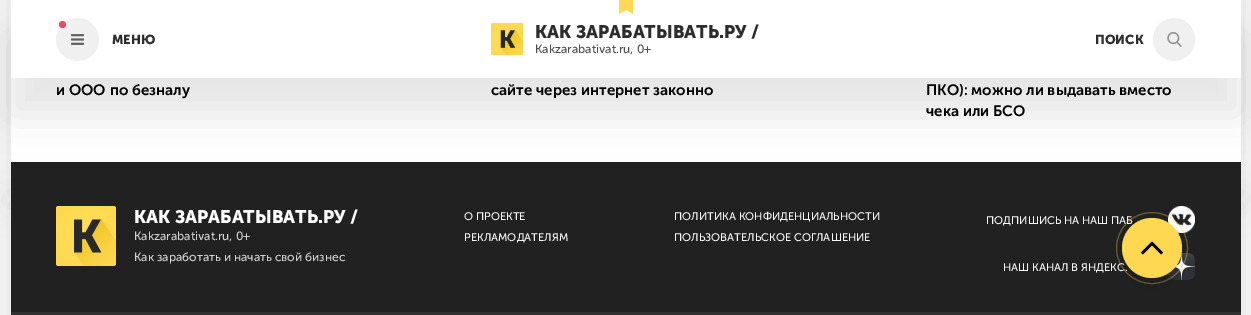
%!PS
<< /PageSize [1251 315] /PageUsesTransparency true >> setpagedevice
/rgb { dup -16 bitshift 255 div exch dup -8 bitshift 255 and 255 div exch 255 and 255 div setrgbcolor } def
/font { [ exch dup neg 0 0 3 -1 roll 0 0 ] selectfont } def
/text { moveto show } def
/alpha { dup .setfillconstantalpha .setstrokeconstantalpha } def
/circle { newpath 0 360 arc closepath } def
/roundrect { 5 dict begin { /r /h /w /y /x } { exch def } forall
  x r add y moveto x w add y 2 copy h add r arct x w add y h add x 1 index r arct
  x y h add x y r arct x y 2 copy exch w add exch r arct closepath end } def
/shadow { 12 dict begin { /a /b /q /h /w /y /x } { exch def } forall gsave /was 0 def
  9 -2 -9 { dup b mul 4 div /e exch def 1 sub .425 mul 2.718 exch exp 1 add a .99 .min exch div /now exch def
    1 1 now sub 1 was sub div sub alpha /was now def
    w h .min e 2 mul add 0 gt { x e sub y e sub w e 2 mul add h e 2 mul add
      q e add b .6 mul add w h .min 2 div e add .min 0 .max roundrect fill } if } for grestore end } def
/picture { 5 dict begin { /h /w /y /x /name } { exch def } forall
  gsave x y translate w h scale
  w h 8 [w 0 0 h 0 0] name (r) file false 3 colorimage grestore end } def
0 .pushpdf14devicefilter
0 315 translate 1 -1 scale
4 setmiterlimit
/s1 { /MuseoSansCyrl-Bold 13 font 16#2D2D2D rgb } def
/s2 { /MuseoSansCyrl-Bold 18 font 16#2D2D2D rgb } def
/s3 { /MuseoSansCyrl-Regular 12 font 16#4C4C4C rgb } def
/s4 { /MuseoSansCyrl-SemiBold 15 font 16#000000 rgb } def
/s5 { /MuseoSansCyrl-Bold 18 font 16#FFFFFF rgb } def
/s6 { /MuseoSansCyrl-Regular 12 font 16#D1D1D1 rgb } def
/s7 { /MuseoSansCyrl-Regular 11 font 16#F8F8F8 rgb } def
16#F9F9F9 rgb
0 0 1251 315 rectfill
16#000001 rgb
11 -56 1230 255 0 18.5 0.1 shadow
16#FFFFFF rgb
11 78 1230 84 rectfill
16#000001 rgb
11 199 1230 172 0 18.5 0.1 shadow
16#212121 rgb
11 162 1230 150 rectfill
16#000001 rgb
11 37 1230 78 0 18.5 0.1 shadow
16#FFFFFF rgb
11 0 1230 78 rectfill
16#F0F0F0 rgb
77.5 39.5 21.5 circle fill
16#E74E64 rgb
62.5 24.5 3.5 circle fill
(pic1.raw) 71 34 13 11 picture
s1
(МЕНЮ) 112 44 text
(pic2.raw) 619 0 14 14 picture
(pic3.raw) 491 23 32 32 picture
s2
(КАК ЗАРАБАТЫВАТЬ.РУ /) 535 38 text
s3
(Kakzarabativat.ru, 0+) 535 53 text
s1
(ПОИСК) 1095 44 text
16#F0F0F0 rgb
1153 18 42 43 21 roundrect fill
(pic4.raw) 1167 32 15 15 picture
s4
(и ООО по безналу) 56 95 text
(сайте через интернет законно) 491 95 text
(ПКО\): можно ли выдавать вместо) 926 95 text
(чека или БСО) 926 116 text
(pic5.raw) 56 206 60 60 picture
s5
(КАК ЗАРАБАТЫВАТЬ.РУ /) 134 223 text
s6
(Kakzarabativat.ru, 0+) 134 240 text
(Как заработать и начать свой бизнес) 134 261 text
s7
(О ПРОЕКТЕ) 464 220 text
(РЕКЛАМОДАТЕЛЯМ) 464 241 text
(ПОЛИТИКА КОНФИДЕНЦИАЛЬНОСТИ) 674 220 text
(ПОЛЬЗОВАТЕЛЬСКОЕ СОГЛАШЕНИЕ) 674 241 text
(pic6.raw) 1168 206 27 27 picture
(ПОДПИШИСЬ НА НАШ ПАБ) 986 224 text
(pic7.raw) 1168 253 27 27 picture
(НАШ КАНАЛ В ЯНДЕКС.) 1003 271 text
16#313131 rgb
11 312 1230 3 rectfill
0.34 alpha
16#FFD852 rgb
1152 248 35.5 circle stroke
1 alpha
16#000001 rgb
1122 228 60 60 30 9.5 0.09 shadow
16#FFD852 rgb
1152 248 30 circle fill
(pic8.raw) 1141 241 22 14 picture
.poppdf14devicefilter showpage
